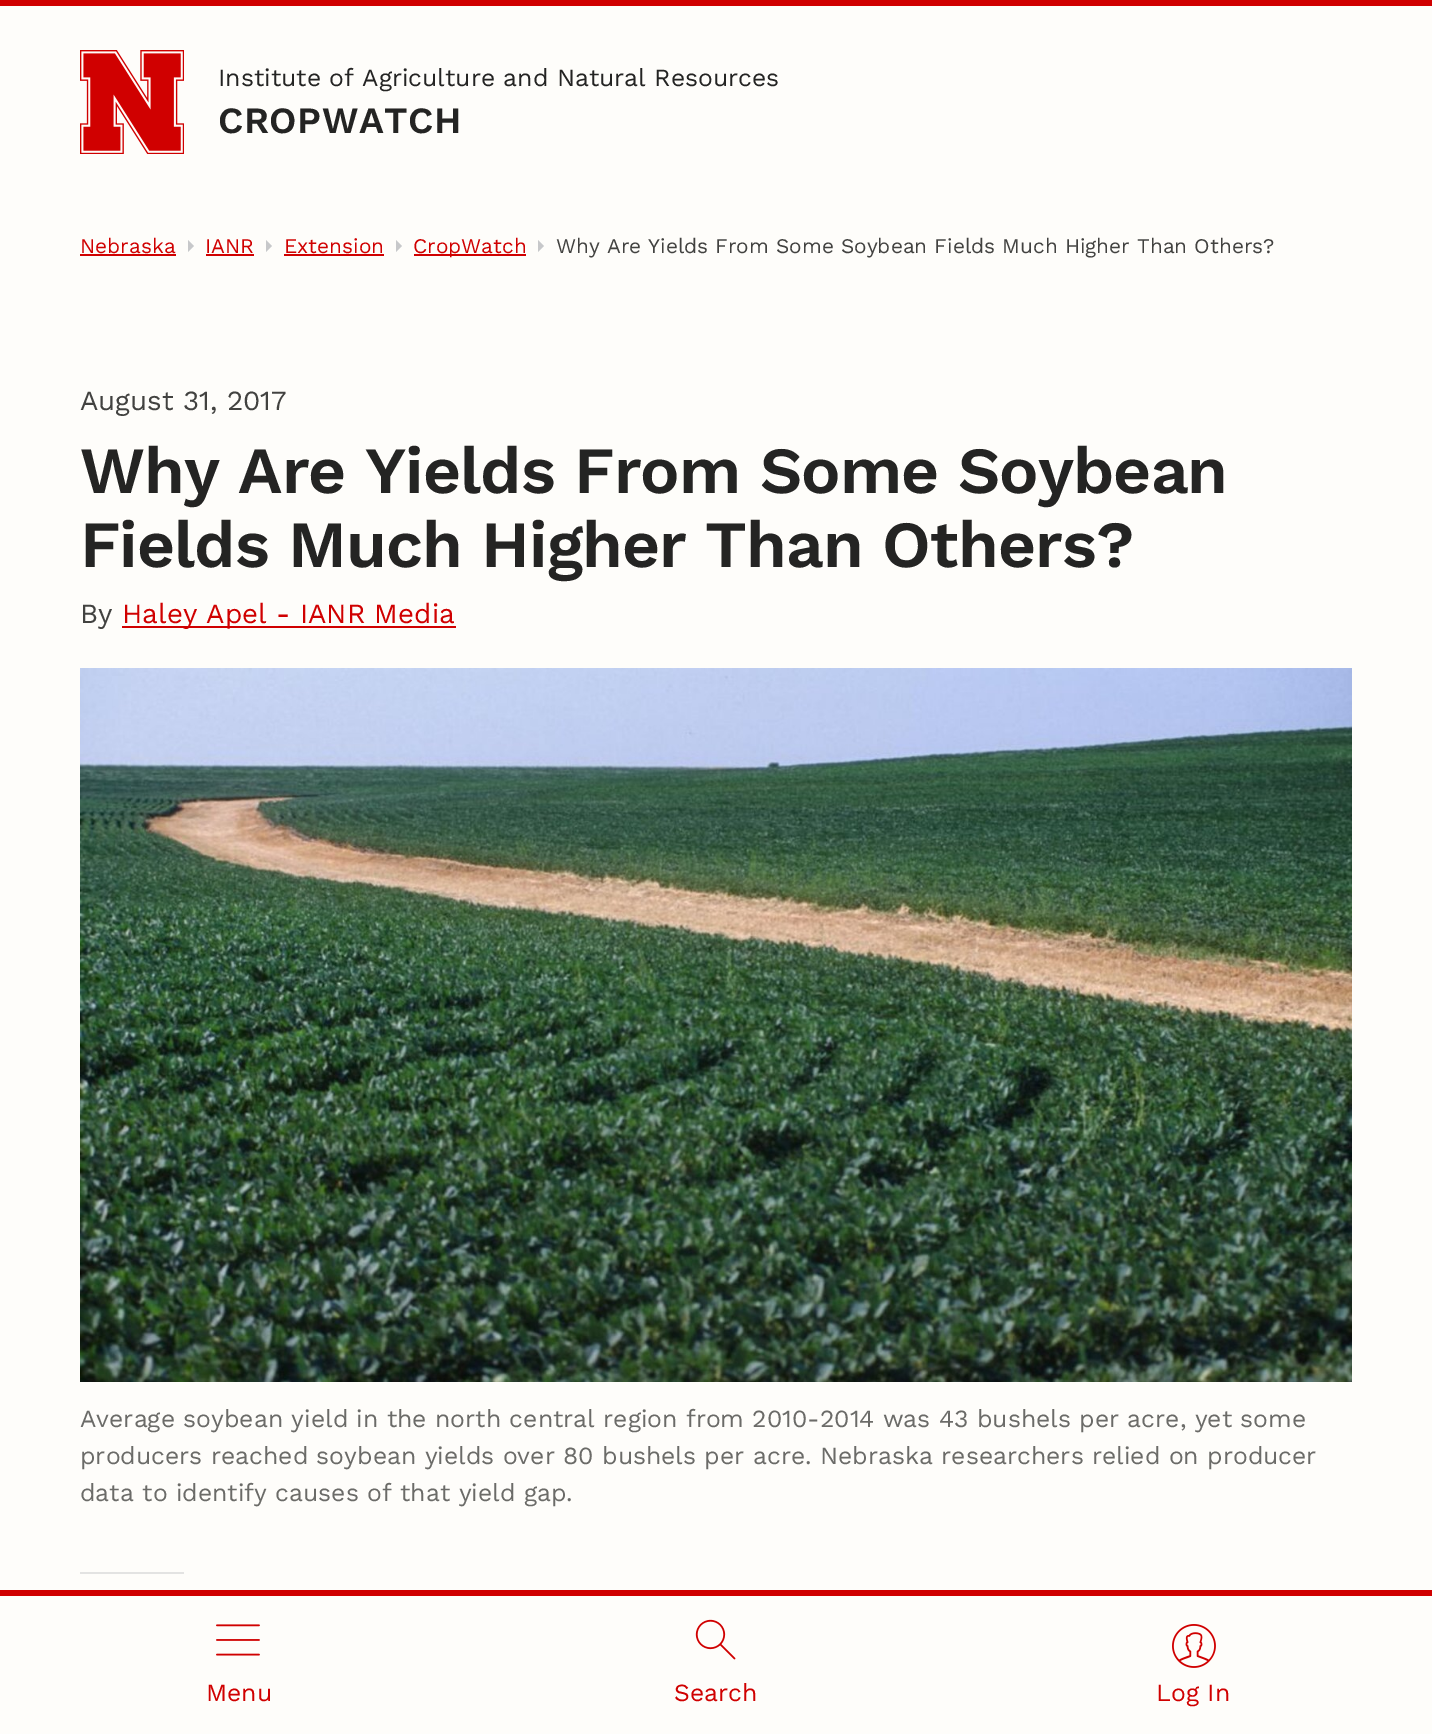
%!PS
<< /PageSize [1432 1734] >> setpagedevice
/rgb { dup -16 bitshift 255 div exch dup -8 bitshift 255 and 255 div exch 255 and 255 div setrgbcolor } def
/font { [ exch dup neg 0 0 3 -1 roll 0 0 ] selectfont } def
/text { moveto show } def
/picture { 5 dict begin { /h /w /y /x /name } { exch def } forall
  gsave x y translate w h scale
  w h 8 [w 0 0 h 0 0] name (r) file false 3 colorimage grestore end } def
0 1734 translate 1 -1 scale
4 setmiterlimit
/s1 { /WorkSans-Regular 24.72 font 16#242423 rgb } def
/s2 { /WorkSans-Regular 24.72 font 16#D00000 rgb } def
/s3 { /WorkSans-Regular 20.85 font 16#D00000 rgb } def
/s4 { /WorkSans-Regular 20.85 font 16#424240 rgb } def
/s5 { /WorkSans-Regular 27.75 font 16#424240 rgb } def
/s6 { /WorkSans-Regular 27.75 font 16#D00000 rgb } def
/s7 { /WorkSans-Regular 24.72 font 16#6B6B68 rgb } def
16#FEFDFA rgb
0 0 1432 1734 rectfill
16#D00000 rgb
0 0 1432 6 rectfill
(pic1.raw) 80 50 104 104 picture
s1
(Institute of Agriculture and Natural Resources) 218 86 text
/WorkSans-SemiBold 37 font
218 133 moveto 0.5 0 (CROPWATCH) ashow
16#D00000 rgb
0 1590 1432 6 rectfill
(pic2.raw) 216 1624 44 32 picture
s2
(Menu) 206 1701 text
(pic3.raw) 695 1619 41 41 picture
(Search) 674 1701 text
(pic4.raw) 1172 1624 44 44 picture
(Log In) 1156 1701 text
s3
(Nebraska) 80 253 text
80 254 96 2 rectfill
16#C7C8CA rgb
188 252 moveto 188 240 lineto 194 246 lineto closepath fill
s3
(IANR) 205 253 text
206 254 48 2 rectfill
16#C7C8CA rgb
266 252 moveto 266 240 lineto 272 246 lineto closepath fill
s3
(Extension) 284 253 text
284 254 100 2 rectfill
16#C7C8CA rgb
396 252 moveto 396 240 lineto 402 246 lineto closepath fill
16#D00000 rgb
414 254 112 2 rectfill
(CropWatch) 413 253 text
16#C7C8CA rgb
538 252 moveto 538 240 lineto 544 246 lineto closepath fill
s4
(Why Are Yields From Some Soybean Fields Much Higher Than Others?) 556 253 text
s5
(August 31, 2017) 80 410 text
/WorkSans-SemiBold 65.9 font
16#242423 rgb
80 493 moveto -0.9 0 (Why Are Yields From Some Soybean) ashow
80 567 moveto -0.9 0 (Fields Much Higher Than Others?) ashow
s5
(By) 80 623 text
16#D00000 rgb
122 626 334 2 rectfill
(Haley Apel - IANR Media) 122 623 text
(pic5.raw) 80 668 1272 714 picture
s7
(Average soybean yield in the north central region from 2010-2014 was 43 bushels per acre, yet some) 80 1427 text
(producers reached soybean yields over 80 bushels per acre. Nebraska researchers relied on producer) 80 1464 text
(data to identify causes of that yield gap.) 80 1501 text
16#E3E3E2 rgb
80 1572 104 2 rectfill
showpage
